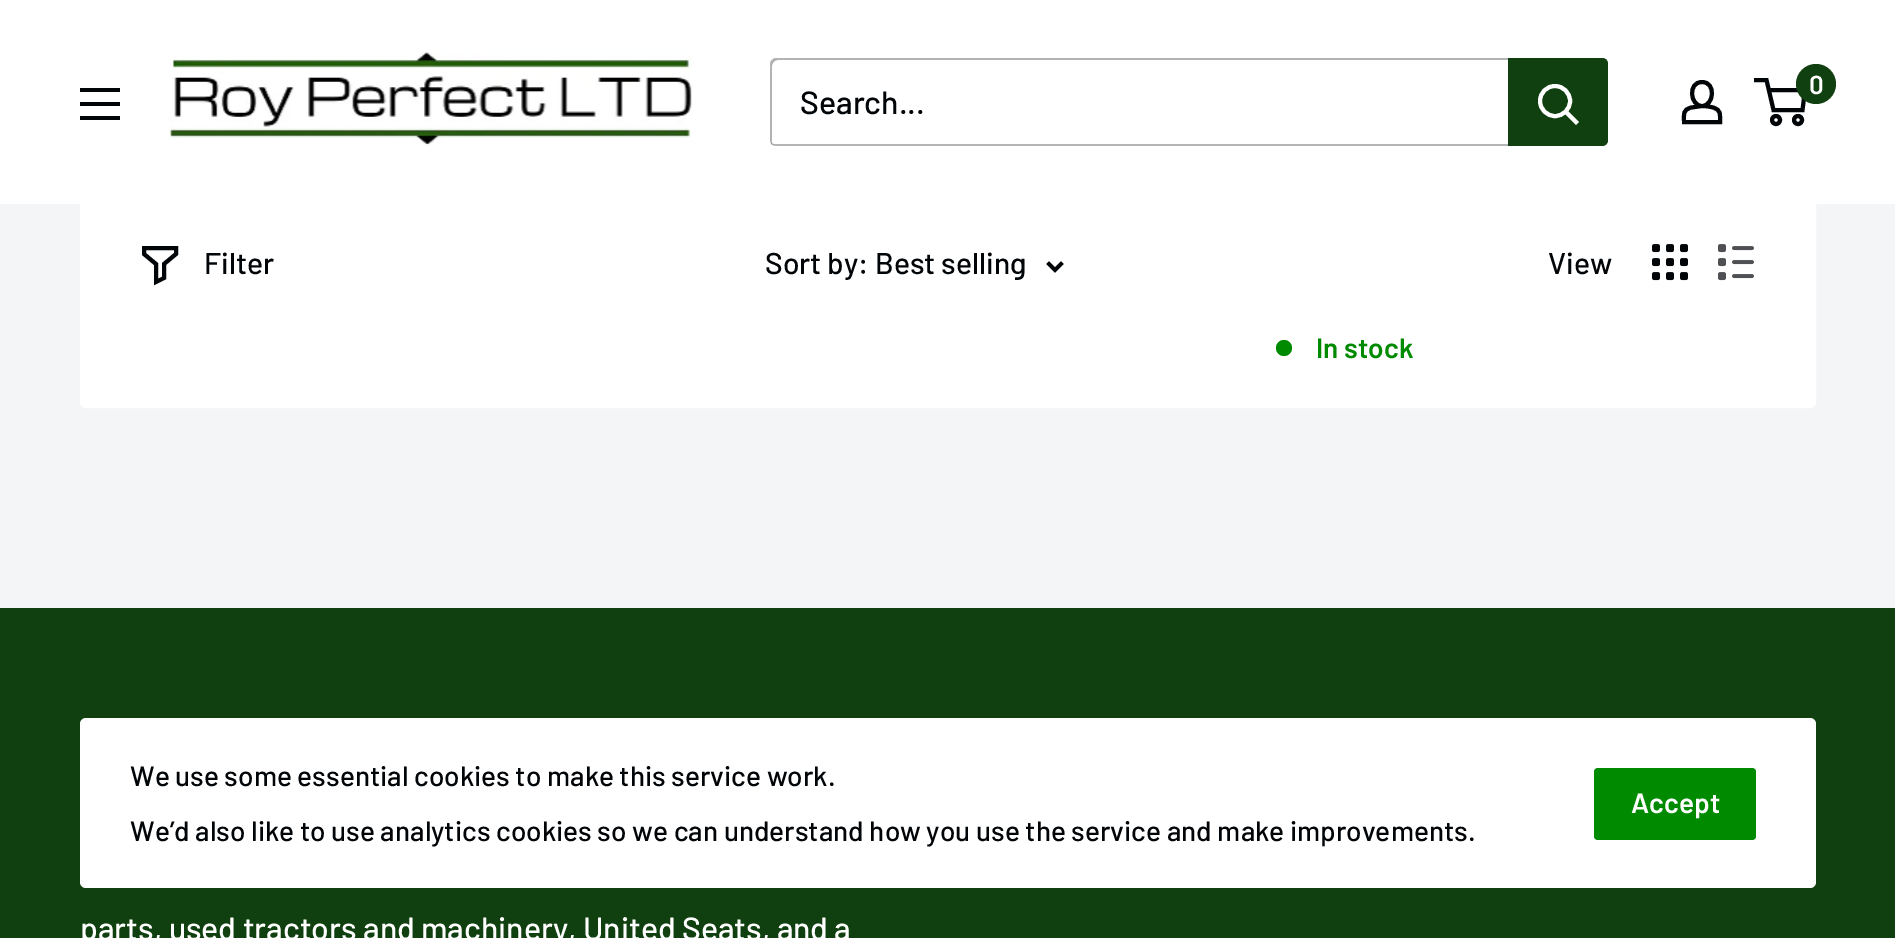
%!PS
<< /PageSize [1895 938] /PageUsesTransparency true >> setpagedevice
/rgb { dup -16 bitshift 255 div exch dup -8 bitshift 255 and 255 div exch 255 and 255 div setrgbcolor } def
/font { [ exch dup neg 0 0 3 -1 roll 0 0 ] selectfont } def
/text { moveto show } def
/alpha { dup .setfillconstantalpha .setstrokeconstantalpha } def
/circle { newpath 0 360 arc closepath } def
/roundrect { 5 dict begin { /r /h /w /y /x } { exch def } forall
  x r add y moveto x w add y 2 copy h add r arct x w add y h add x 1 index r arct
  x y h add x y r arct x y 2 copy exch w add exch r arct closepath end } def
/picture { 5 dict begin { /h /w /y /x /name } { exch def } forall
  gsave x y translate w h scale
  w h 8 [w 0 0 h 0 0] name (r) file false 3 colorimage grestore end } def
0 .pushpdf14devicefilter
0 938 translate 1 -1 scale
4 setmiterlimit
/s1 { /Barlow-SemiBold 26 font 16#FFFFFF rgb } def
/s2 { /Barlow-Medium 32 font 16#010508 rgb } def
/s3 { /Barlow-Medium 30 font 16#010508 rgb } def
/s4 { /Barlow-SemiBold 28 font 16#008A00 rgb } def
/s5 { /Barlow-Medium 28 font 16#010508 rgb } def
/s6 { /Barlow-SemiBold 28 font 16#FFFFFF rgb } def
/s7 { /Barlow-Medium 32 font 16#FFFFFF rgb } def
16#F3F5F6 rgb
0 0 1895 938 rectfill
16#FFFFFF rgb
81 -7 1734 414 5 roundrect gsave fill grestore
2 setlinewidth
stroke
0 0 1895 204 rectfill
(pic1.raw) 169 51 523 95 picture
16#010508 rgb
4 setlinewidth
1702 106 moveto 1706 106 1709.5 106.5 1713 107.5 curveto 1721.5 110 1720 114.5 1720 122 curveto 1684 122 lineto 1684 114 1682.5 109.5 1691.5 107.5 curveto closepath 1702 106 moveto 1690 106 1687.5 82 1702 82 curveto 1716.5 82 1714 106 1702 106 curveto closepath stroke
1776 120 4 circle stroke
1798 120 4 circle stroke
1768.5 90 moveto 1805 90 lineto 1802.5 110 lineto 1773.5 110 lineto 1766.5 80 lineto 1754 80 lineto stroke
16#104010 rgb
1816 84 20 circle fill
s1
(0) 1809 94 text
16#010508 rgb
80 116 moveto 120 116 lineto 120 120 lineto 80 120 lineto closepath 80 88 moveto 120 88 lineto 120 92 lineto 80 92 lineto closepath 80 102 moveto 120 102 lineto 120 106 lineto 80 106 lineto closepath eofill
16#B3B4B5 rgb
771 143 moveto 772 145 774 146 776 146 curveto 1602 146 lineto 1605 146 1608 143 1608 140 curveto 1608 64 lineto 1608 62 1607 60 1605 59 curveto 1606 60 1606 61 1606 62 curveto 1606 138 lineto 1606 141 1603 144 1600 144 curveto 774 144 lineto 773 144 772 144 771 143 curveto closepath fill
0.3 alpha
16#010508 rgb
778 60 moveto 1604 60 lineto 1607 61 lineto 1606 59 1604 58 1602 58 curveto 776 58 lineto 773 58 770 61 770 64 curveto 770 140 lineto 770 142 771 144 773 145 curveto 772 144 772 143 772 142 curveto 772 66 lineto 772 63 775 60 778 60 curveto closepath fill
1 alpha
s2
(Search...) 800 114 text
16#104010 rgb
1508 58 moveto 1602 58 lineto 1605.5 58 1608 60.5 1608 64 curveto 1608 140 lineto 1608 143.5 1605.5 146 1602 146 curveto 1508 146 lineto closepath fill
16#FFFFFF rgb
2 setlinecap
1576 122 moveto 1566 112 lineto stroke
0 setlinecap
1555 101 15 circle stroke
16#010508 rgb
2 setlinecap
176 254 moveto 164 264 lineto 164 278 lineto 156 282 lineto 156 264 lineto 144 254 lineto 144 248 lineto 176 248 lineto closepath stroke
s3
(Filter) 204 274 text
(Sort by: Best selling) 765 274 text
3.8 setlinewidth
1061 264 moveto 1055 270 lineto 1049 264 lineto stroke
(View) 1548 274 text
(pic2.raw) 1652 244 36 37 picture
(pic3.raw) 1718 244 36 37 picture
16#008A00 rgb
1284 348 8 circle fill
s4
(In stock) 1316 358 text
16#104010 rgb
0 608 1895 330 rectfill
16#FFFFFF rgb
80 718 1736 170 6 roundrect fill
s5
(We use some essential cookies to make this service work.) 130 786 text
(We’d also like to use analytics cookies so we can understand how you use the service and make improvements.) 130 841 text
16#008A00 rgb
1594 768 162 72 4 roundrect fill
s6
(Accept) 1631 813 text
s7
(parts, used tractors and machinery, United Seats, and a) 80 940 text
.poppdf14devicefilter showpage
